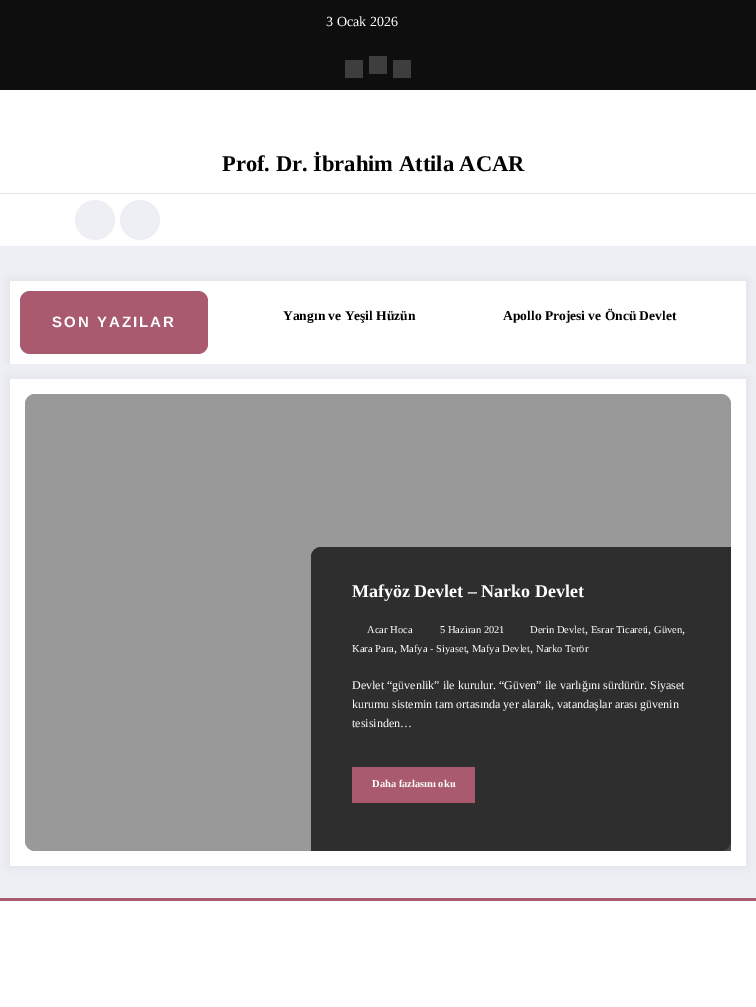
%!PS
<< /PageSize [756 1007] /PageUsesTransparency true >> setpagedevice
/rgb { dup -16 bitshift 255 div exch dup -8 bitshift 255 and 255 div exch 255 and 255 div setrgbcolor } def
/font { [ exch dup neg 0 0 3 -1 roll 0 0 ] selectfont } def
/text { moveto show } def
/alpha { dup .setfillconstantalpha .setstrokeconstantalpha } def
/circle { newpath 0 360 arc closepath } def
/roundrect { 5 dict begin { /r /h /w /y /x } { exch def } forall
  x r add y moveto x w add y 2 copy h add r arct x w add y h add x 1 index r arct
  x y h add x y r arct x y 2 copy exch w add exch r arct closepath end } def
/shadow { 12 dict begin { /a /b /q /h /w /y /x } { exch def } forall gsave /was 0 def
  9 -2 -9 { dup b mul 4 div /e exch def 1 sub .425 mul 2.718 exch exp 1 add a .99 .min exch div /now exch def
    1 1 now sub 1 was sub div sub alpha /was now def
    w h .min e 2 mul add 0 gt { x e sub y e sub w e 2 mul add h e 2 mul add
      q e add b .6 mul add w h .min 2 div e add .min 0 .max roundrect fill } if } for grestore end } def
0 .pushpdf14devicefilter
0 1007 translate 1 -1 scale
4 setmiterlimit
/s1 { /LiberationSerif-Regular 14 font 16#FFFFFF rgb } def
/s2 { /LiberationSerif-Bold 22.5 font 16#000000 rgb } def
/s3 { /LiberationSerif-Bold 13.5 font 16#000000 rgb } def
/s4 { /LiberationSerif-Bold 18 font 16#FFFFFF rgb } def
/s5 { /LiberationSerif-Regular 10.5 font 16#FFFFFF rgb } def
/s6 { /LiberationSerif-Regular 12 font 16#FFFFFF rgb } def
/s7 { /LiberationSerif-Bold 10.5 font 16#FFFFFF rgb } def
16#FFFFFF rgb
0 0 756 1007 rectfill
16#EEEEF5 rgb
0 246 756 652 rectfill
16#0E0E0E rgb
0 0 756 90 rectfill
s1
(3 Ocak 2026) 326 26 text
16#3E3E3E rgb
345 60 18 18 rectfill
369 56 18 18 rectfill
393 60 18 18 rectfill
s2
(Prof. Dr. İbrahim Attila ACAR) 222 171 text
16#E1E1E1 rgb
0 193 756 1 rectfill
16#EEEEF5 rgb
95 220 20 circle fill
140 220 20 circle fill
gsave
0 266 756 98 rectclip
16#171723 rgb
8 279 740 87 0 4 0.05 shadow
grestore
16#FFFFFF rgb
10 281 736 83 rectfill
16#AA5A6F rgb
20 291 188 63 10 roundrect fill
/LiberationSans-Bold 15 font
16#FFFFFF rgb
52 327 moveto 2 0 (SON YAZILAR) ashow
s3
(Yangın ve Yeşil Hüzün) 283 320 text
(Apollo Projesi ve Öncü Devlet) 503 320 text
16#171723 rgb
8 377 740 491 0 4 0.05 shadow
16#FFFFFF rgb
10 379 736 487 rectfill
16#999999 rgb
25 394 706 457 10 roundrect fill
0.7 alpha
16#000000 rgb
321 547 moveto 731 547 lineto 731 851 lineto 311 851 lineto 311 557 lineto 311 551.5 315.5 547 321 547 curveto closepath fill
1 alpha
s4
(Mafyöz Devlet – Narko Devlet) 352 597 text
s5
(Acar Hoca) 367 633 text
(5 Haziran 2021) 440 633 text
(Derin Devlet) 530 633 text
s6
(,) 585 633 text
s5
(Esrar Ticareti) 591 633 text
s6
(,) 648 633 text
s5
(Güven) 654 633 text
s6
(,) 682 633 text
s5
(Kara Para) 352 652 text
s6
(,) 394 652 text
s5
(Mafya - Siyaset) 400 652 text
s6
(,) 466 652 text
s5
(Mafya Devlet) 472 652 text
s6
(,) 530 652 text
s5
(Narko Terör) 536 652 text
s6
(Devlet “güvenlik” ile kurulur. “Güven” ile varlığını sürdürür. Siyaset) 352 689 text
(kurumu sistemin tam ortasında yer alarak, vatandaşlar arası güvenin) 352 708 text
(tesisinden…) 352 727 text
16#AA5A6F rgb
352 767 123 36 rectfill
s7
(Daha fazlasını oku) 372 787 text
16#AA5A6F rgb
0 898 756 3 rectfill
.poppdf14devicefilter showpage
